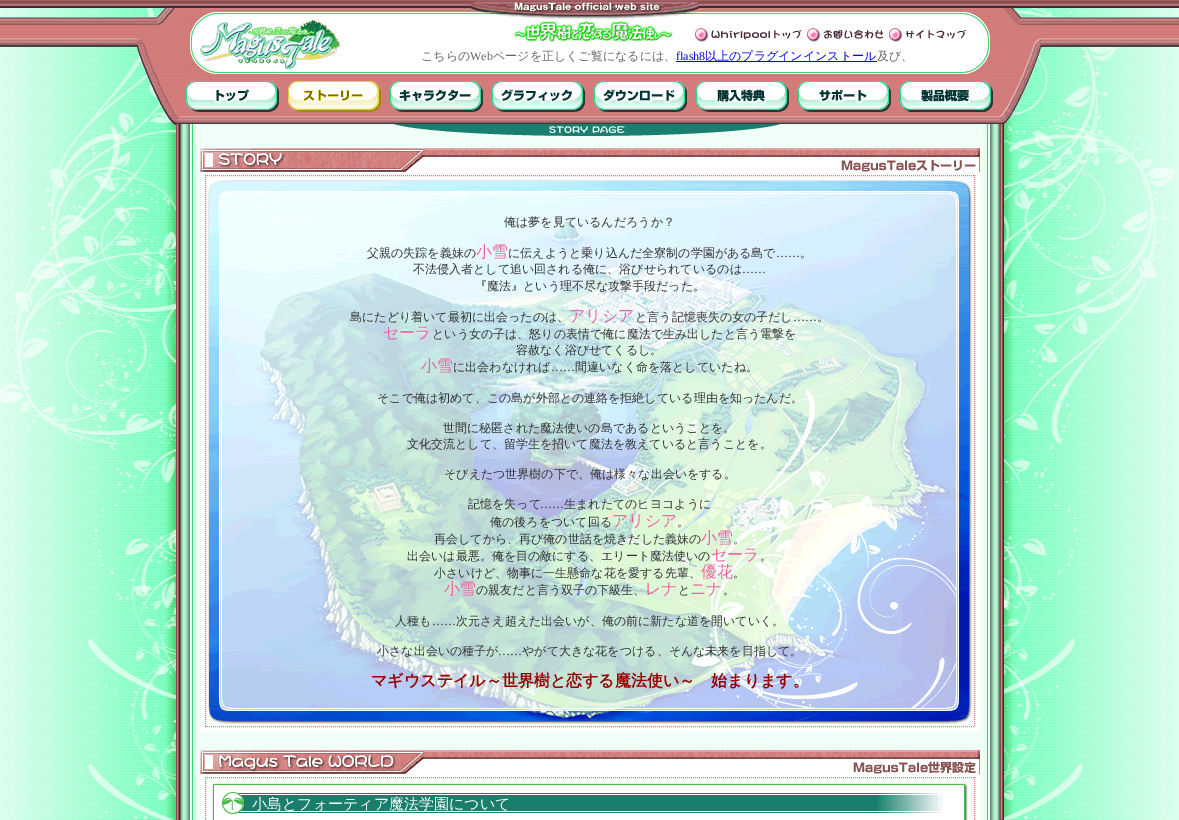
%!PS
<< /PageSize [1179 820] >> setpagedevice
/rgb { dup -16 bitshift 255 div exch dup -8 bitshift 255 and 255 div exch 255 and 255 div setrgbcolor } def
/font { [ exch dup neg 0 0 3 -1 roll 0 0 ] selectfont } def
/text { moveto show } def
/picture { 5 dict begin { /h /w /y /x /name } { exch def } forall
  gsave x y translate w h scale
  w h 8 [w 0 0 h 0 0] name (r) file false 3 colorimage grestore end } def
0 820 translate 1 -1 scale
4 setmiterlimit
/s1 { /WenQuanYiZenHei-Medium 12 font 16#666666 rgb } def
/s2 { /LiberationSerif-Regular 12 font 16#666666 rgb } def
/s3 { /LiberationSerif-Regular 12 font 16#0000EE rgb } def
/s4 { /WenQuanYiZenHei-Medium 12 font 16#0000EE rgb } def
/s5 { /WenQuanYiZenHei-Medium 12 font 16#333333 rgb } def
/s6 { /WenQuanYiZenHei-Medium 16 font 16#ED65A3 rgb } def
/s7 { /LiberationSerif-Regular 12 font 16#333333 rgb } def
/s8 { /WenQuanYiZenHei-Bold 16 font 16#990000 rgb } def
/s9 { /WenQuanYiZenHei-Medium 15 font 16#FFFFFF rgb } def
16#FFFFFF rgb
0 0 1179 820 rectfill
(pic1.raw) 0 8 1179 812 picture
(pic2.raw) 0 0 1179 8 picture
(pic3.raw) 161 1 856 11 picture
(pic4.raw) 0 17 1179 30 picture
(pic5.raw) 137 12 906 62 picture
(pic6.raw) 190 12 800 62 picture
(pic7.raw) 200 20 140 49 picture
(pic8.raw) 695 28 107 14 picture
(pic9.raw) 807 28 77 14 picture
(pic10.raw) 889 28 77 14 picture
s1
(こちらの) 421 60 text
s2
(Web) 470 60 text
s1
(ページを正しくご覧になるには、) 493 60 text
s3
(flash8) 676 60 text
676 61 201 1 rectfill
s4
(以上のプラグインインストール) 705 60 text
s1
(及び、) 877 60 text
(pic11.raw) 146 74 886 51 picture
(pic12.raw) 185 79 95 34 picture
(pic13.raw) 288 81 93 31 picture
(pic14.raw) 390 81 93 31 picture
(pic15.raw) 492 81 93 31 picture
(pic16.raw) 594 81 93 31 picture
(pic17.raw) 696 81 93 31 picture
(pic18.raw) 798 81 93 31 picture
(pic19.raw) 900 81 93 31 picture
(pic20.raw) 176 124 828 696 picture
(pic21.raw) 186 124 808 696 picture
(pic22.raw) 190 124 800 16 picture
16#FFFFFF rgb
200 172 780 560 rectfill
(pic23.raw) 200 148 780 24 picture
16#D27C7C rgb
[1 1] 0 setdash
205 175.5 moveto 975 175.5 lineto stroke
974.5 175 moveto 974.5 727 lineto stroke
205 726.5 moveto 975 726.5 lineto stroke
205.5 175 moveto 205.5 727 lineto stroke
(pic24.raw) 208 180 764 544 picture
s5
(俺は夢を見ているんだろうか？) 504 226 text
(父親の失踪を義妹の) 367 257 text
s6
(小雪) 476 257 text
s5
(に伝えようと乗り込んだ全寮制の学園がある島で) 508 257 text
s7
(……) 776 257 text
s5
(。) 800 257 text
(不法侵入者として追い回される俺に、浴びせられているのは) 413 273 text
s7
(……) 742 273 text
s5
(『魔法』という理不尽な攻撃手段だった。) 475 290 text
(島にたどり着いて最初に出会ったのは、) 350 321 text
s6
(アリシア) 569 321 text
s5
(と言う記憶喪失の女の子だし) 635 321 text
s7
(……) 793 321 text
s5
(。) 817 321 text
s6
(セーラ) 383 338 text
s5
(という女の子は、怒りの表情で俺に魔法で生み出したと言う電撃を) 432 338 text
(容赦なく浴びせてくるし。) 516 354 text
s6
(小雪) 421 371 text
s5
(に出会わなければ) 453 371 text
s7
(……) 551 371 text
s5
(間違いなく命を落としていたね。) 575 371 text
(そこで俺は初めて、この島が外部との連絡を拒絶している理由を知ったんだ。) 377 402 text
(世間に秘匿された魔法使いの島であるということを。) 443 432 text
(文化交流として、留学生を招いて魔法を教えていると言うことを。) 407 448 text
(そびえたつ世界樹の下で、俺は様々な出会いをする。) 444 478 text
(記憶を失って) 468 508 text
s7
(……) 540 508 text
s5
(生まれたてのヒヨコように) 564 508 text
(俺の後ろをついて回る) 490 526 text
s6
(アリシア) 612 526 text
s5
(。) 677 526 text
(再会してから、再び俺の世話を焼きだした義妹の) 434 543 text
s6
(小雪) 701 543 text
s5
(。) 733 543 text
(出会いは最悪。俺を目の敵にする、エリート魔法使いの) 407 560 text
s6
(セーラ) 711 560 text
s5
(。) 760 560 text
(小さいけど、物事に一生懸命な花を愛する先輩、) 434 577 text
s6
(優花) 701 577 text
s5
(。) 733 577 text
s6
(小雪) 444 594 text
s5
(の親友だと言う双子の下級生、) 476 594 text
s6
(レナ) 645 594 text
s5
(と) 678 594 text
s6
(ニナ) 690 594 text
s5
(。) 723 594 text
(人種も) 395 625 text
s7
(……) 432 625 text
s5
(次元さえ超えた出会いが、俺の前に新たな道を開いていく。) 456 625 text
(小さな出会いの種子が) 377 655 text
s7
(……) 498 655 text
s5
(やがて大きな花をつける、そんな未来を目指して。) 522 655 text
s8
(マギウステイル～世界樹と恋する魔法使い～　始まります。) 371 686 text
16#FFFFFF rgb
200 774 780 46 rectfill
(pic25.raw) 200 750 780 24 picture
16#D27C7C rgb
205 777.5 moveto 975 777.5 lineto stroke
974.5 777 moveto 974.5 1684 lineto stroke
205.5 777 moveto 205.5 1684 lineto stroke
(pic26.raw) 212 783 756 4 picture
(pic27.raw) 212 787 756 33 picture
(pic28.raw) 222 792 721 22 picture
s9
(小島とフォーティア魔法学園について) 252 809 text
showpage
